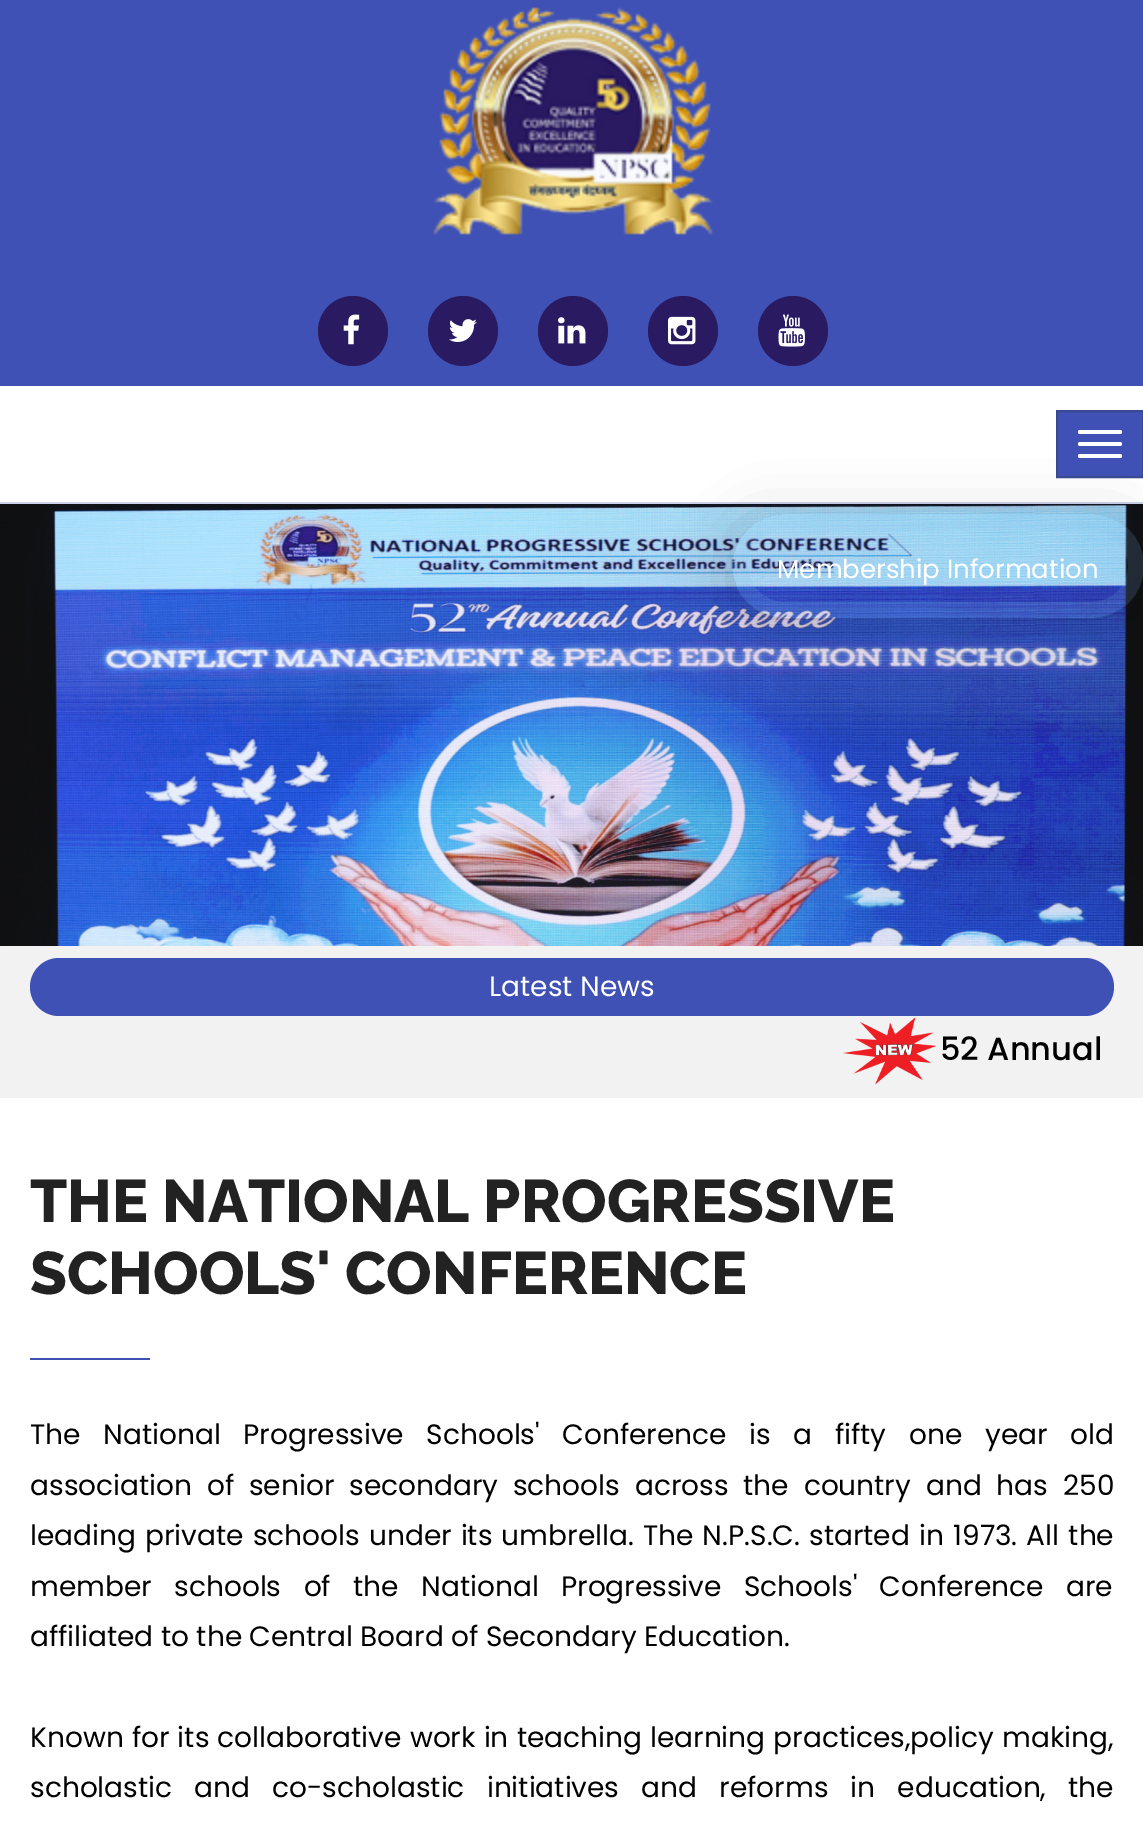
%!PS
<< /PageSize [1143 1829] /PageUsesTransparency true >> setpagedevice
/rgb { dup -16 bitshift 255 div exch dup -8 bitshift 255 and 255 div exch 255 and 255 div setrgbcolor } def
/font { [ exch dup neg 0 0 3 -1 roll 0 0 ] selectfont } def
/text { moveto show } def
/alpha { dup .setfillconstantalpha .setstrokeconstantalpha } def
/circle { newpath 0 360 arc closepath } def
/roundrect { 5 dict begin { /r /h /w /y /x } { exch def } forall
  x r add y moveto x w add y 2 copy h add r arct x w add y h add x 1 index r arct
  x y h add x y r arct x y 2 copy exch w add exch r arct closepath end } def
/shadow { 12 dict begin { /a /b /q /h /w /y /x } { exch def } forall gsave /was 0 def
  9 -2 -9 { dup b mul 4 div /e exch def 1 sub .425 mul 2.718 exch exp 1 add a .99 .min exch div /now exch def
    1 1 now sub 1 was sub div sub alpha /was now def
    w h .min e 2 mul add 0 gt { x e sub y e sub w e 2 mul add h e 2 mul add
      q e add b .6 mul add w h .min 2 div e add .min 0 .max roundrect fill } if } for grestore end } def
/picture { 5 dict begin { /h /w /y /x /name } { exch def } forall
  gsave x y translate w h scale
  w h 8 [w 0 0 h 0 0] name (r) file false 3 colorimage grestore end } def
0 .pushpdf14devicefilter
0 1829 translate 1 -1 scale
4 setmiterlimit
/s1 { /Poppins-Regular 26 font 16#FFFFFF rgb } def
/s2 { /Poppins-Regular 28 font 16#FFFFFF rgb } def
/s3 { /Poppins-Medium 32 font 16#000000 rgb } def
/s4 { /Raleway-ExtraBold 60 font 16#222222 rgb } def
/s5 { /Poppins-Regular 28 font 16#000000 rgb } def
16#FFFFFF rgb
0 0 1143 1829 rectfill
16#3F51B5 rgb
0 0 1143 386 rectfill
(pic1.raw) 433 7 280 228 picture
16#2A1A62 rgb
353 331 35 circle fill
(pic2.raw) 343 314 17 31 picture
463 331 35 circle fill
(pic3.raw) 449 319 28 23 picture
573 331 35 circle fill
(pic4.raw) 558 317 28 27 picture
683 331 35 circle fill
(pic5.raw) 668 316 28 29 picture
793 331 35 circle fill
(pic6.raw) 778 314 27 33 picture
16#CDD2EC rgb
0 502 1143 2 rectfill
(pic7.raw) 0 504 1143 442 picture
gsave
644 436 moveto 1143 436 lineto 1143 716 lineto 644 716 lineto closepath 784 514 moveto 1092 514 lineto 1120.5 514 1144 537.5 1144 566 curveto 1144 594.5 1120.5 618 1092 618 curveto 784 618 lineto 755.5 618 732 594.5 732 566 curveto 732 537.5 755.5 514 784 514 curveto closepath eoclip newpath
16#000000 rgb
732 524 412 104 52 29 0.19 shadow
grestore
16#3F51B5 rgb
1057 411 moveto 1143 411 lineto 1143 477 lineto 1057 477 lineto closepath gsave fill grestore
16#3A4891 rgb
2 setlinewidth
stroke
16#FFFFFF rgb
1078 430 44 4 2 roundrect fill
1078 442 44 4 2 roundrect fill
1078 454 44 4 2 roundrect fill
0.15 alpha
16#87C2EB rgb
16 setlinewidth
740 522 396 88 44 roundrect stroke
1 alpha
s1
(Membership Information) 777 578 text
16#F2F2F2 rgb
0 946 1143 152 rectfill
16#3F51B5 rgb
30 958 1084 58 29 roundrect fill
s2
(Latest News) 489 996 text
(pic8.raw) 842 1017 95 68 picture
s3
(52 Annual) 940 1060 text
s4
(THE NATIONAL PROGRESSIVE) 30 1222 text
(SCHOOLS' CONFERENCE) 30 1294 text
16#3F51B5 rgb
30 1358 120 2 rectfill
/Poppins-Regular 28 font
16#000000 rgb
30 1444 moveto 15.25 0 32 (The National Progressive Schools' Conference is a fifty one year old) widthshow
30 1495 moveto 7.5 0 32 (association of senior secondary schools across the country and has 250) widthshow
30 1545 moveto 1.75 0 32 (leading private schools under its umbrella. The N.P.S.C. started in 1973. All the) widthshow
30 1596 moveto 15 0 32 (member schools of the National Progressive Schools' Conference are) widthshow
(affiliated to the Central Board of Secondary Education.) 30 1646 text
30 1747 moveto 0.75 0 32 (Known for its collaborative work in teaching learning practices,policy making,) widthshow
30 1797 moveto 14.75 0 32 (scholastic and co-scholastic initiatives and reforms in education, the) widthshow
.poppdf14devicefilter showpage
